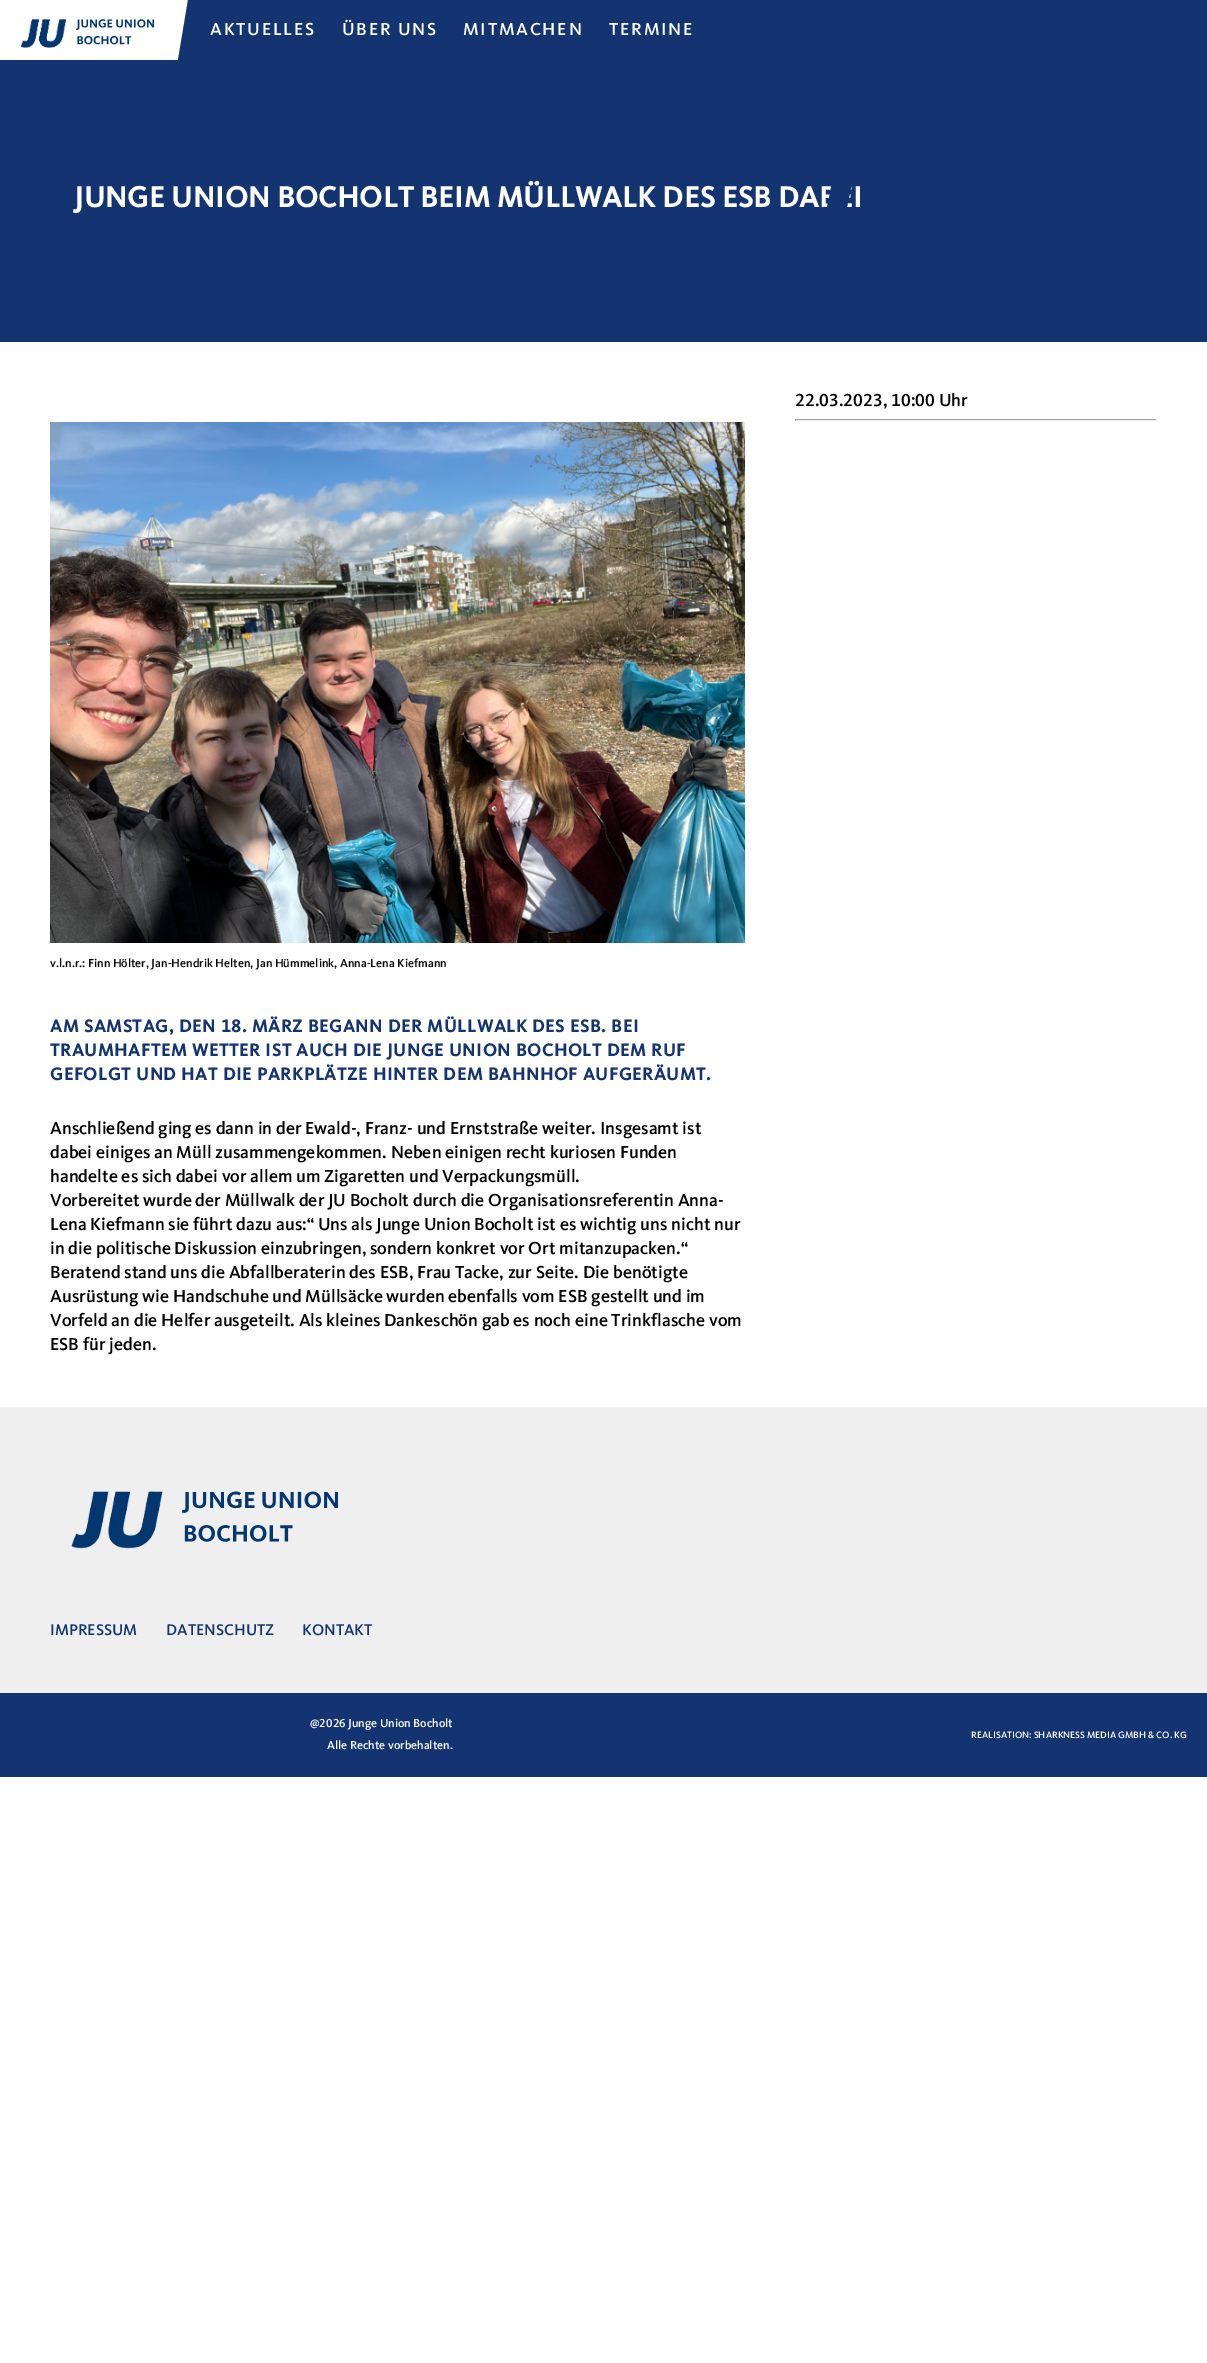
%!PS
<< /PageSize [1207 2363] >> setpagedevice
/rgb { dup -16 bitshift 255 div exch dup -8 bitshift 255 and 255 div exch 255 and 255 div setrgbcolor } def
/font { [ exch dup neg 0 0 3 -1 roll 0 0 ] selectfont } def
/text { moveto show } def
/picture { 5 dict begin { /h /w /y /x /name } { exch def } forall
  gsave x y translate w h scale
  w h 8 [w 0 0 h 0 0] name (r) file false 3 colorimage grestore end } def
0 2363 translate 1 -1 scale
4 setmiterlimit
/s1 { /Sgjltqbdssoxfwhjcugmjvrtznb-Medium 18 font 16#000000 rgb } def
/s2 { /Sgjltqbdssoxfwhjcugmjvrtznb-Medium 12 font 16#000000 rgb } def
/s3 { /Sgjltqbdssoxfwhjcugmjvrtznb-Medium 16 font 16#133371 rgb } def
/s4 { /Sgjltqbdssoxfwhjcugmjvrtznb-Medium 12 font 16#FFFFFF rgb } def
/s5 { /Sgjltqbdssoxfwhjcugmjvrtznb-Medium 9.6 font 16#FFFFFF rgb } def
16#FFFFFF rgb
0 0 1207 2363 rectfill
(pic1.raw) 20 19 134 29 picture
16#133371 rgb
190 0 moveto 188 0 lineto 178 60 lineto 190 60 lineto closepath fill
190 0 1017 60 rectfill
/Sgjltqbdssoxfwhjcugmjvrtznb-Medium 18 font
16#FFFFFF rgb
210 35 moveto 1.75 0 (AKTUELLES) ashow
342 35 moveto 1.75 0 (ÜBER UNS) ashow
463 35 moveto 1.75 0 (MITMACHEN) ashow
609 35 moveto 1.75 0 (TERMINE) ashow
16#133371 rgb
0 60 1207 282 rectfill
/Sgjltqbdssoxfwhjcugmjvrtznb-Bold 30 font
16#FFFFFF rgb
74 207 moveto 0.35 0 (JUNGE UNION BOCHOLT BEIM MÜLLWALK DES ESB DABEI) ashow
16#133371 rgb
839 150 moveto 859 150 lineto 839 245 lineto 819 245 lineto closepath fill
s1
(22.03.2023, 10:00 Uhr) 795 406 text
16#9F9F9F rgb
795 419 362 1 rectfill
16#EEEEEE rgb
1156 419 1 2 rectfill
795 420 362 1 rectfill
16#9F9F9F rgb
795 419 1 2 rectfill
(pic2.raw) 50 422 695 521 picture
s2
(v.l.n.r.: Finn Hölter, Jan-Hendrik Helten, Jan Hümmelink, Anna-Lena Kiefmann) 50 967 text
/Sgjltqbdssoxfwhjcugmjvrtznb-Bold 18 font
16#133371 rgb
50 1032 moveto 0.8 0 (AM SAMSTAG, DEN 18. MÄRZ BEGANN DER MÜLLWALK DES ESB. BEI) ashow
50 1056 moveto 0.8 0 (TRAUMHAFTEM WETTER IST AUCH DIE JUNGE UNION BOCHOLT DEM RUF) ashow
50 1080 moveto 0.8 0 (GEFOLGT UND HAT DIE PARKPLÄTZE HINTER DEM BAHNHOF AUFGERÄUMT.) ashow
s1
(Anschließend ging es dann in der Ewald-, Franz- und Ernststraße weiter. Insgesamt ist) 50 1134 text
(dabei einiges an Müll zusammengekommen. Neben einigen recht kuriosen Funden) 50 1158 text
(handelte es sich dabei vor allem um Zigaretten und Verpackungsmüll.) 50 1182 text
(Vorbereitet wurde der Müllwalk der JU Bocholt durch die Organisationsreferentin Anna-) 50 1206 text
(Lena Kiefmann sie führt dazu aus:“ Uns als Junge Union Bocholt ist es wichtig uns nicht nur) 50 1230 text
(in die politische Diskussion einzubringen, sondern konkret vor Ort mitanzupacken.“) 50 1254 text
(Beratend stand uns die Abfallberaterin des ESB, Frau Tacke, zur Seite. Die benötigte) 50 1278 text
(Ausrüstung wie Handschuhe und Müllsäcke wurden ebenfalls vom ESB gestellt und im) 50 1302 text
(Vorfeld an die Helfer ausgeteilt. Als kleines Dankeschön gab es noch eine Trinkflasche vom) 50 1326 text
(ESB für jeden.) 50 1350 text
16#EFEFEF rgb
0 1407 1207 286 rectfill
(pic3.raw) 71 1491 267 58 picture
s3
(IMPRESSUM) 50 1635 text
(DATENSCHUTZ) 166 1635 text
(KONTAKT) 302 1635 text
0 1693 1207 84 rectfill
s4
(@2026 Junge Union Bocholt) 310 1727 text
(Alle Rechte vorbehalten.) 327 1749 text
s5
(REALISATION: SHARKNESS MEDIA GMBH & CO. KG) 971 1738 text
showpage
